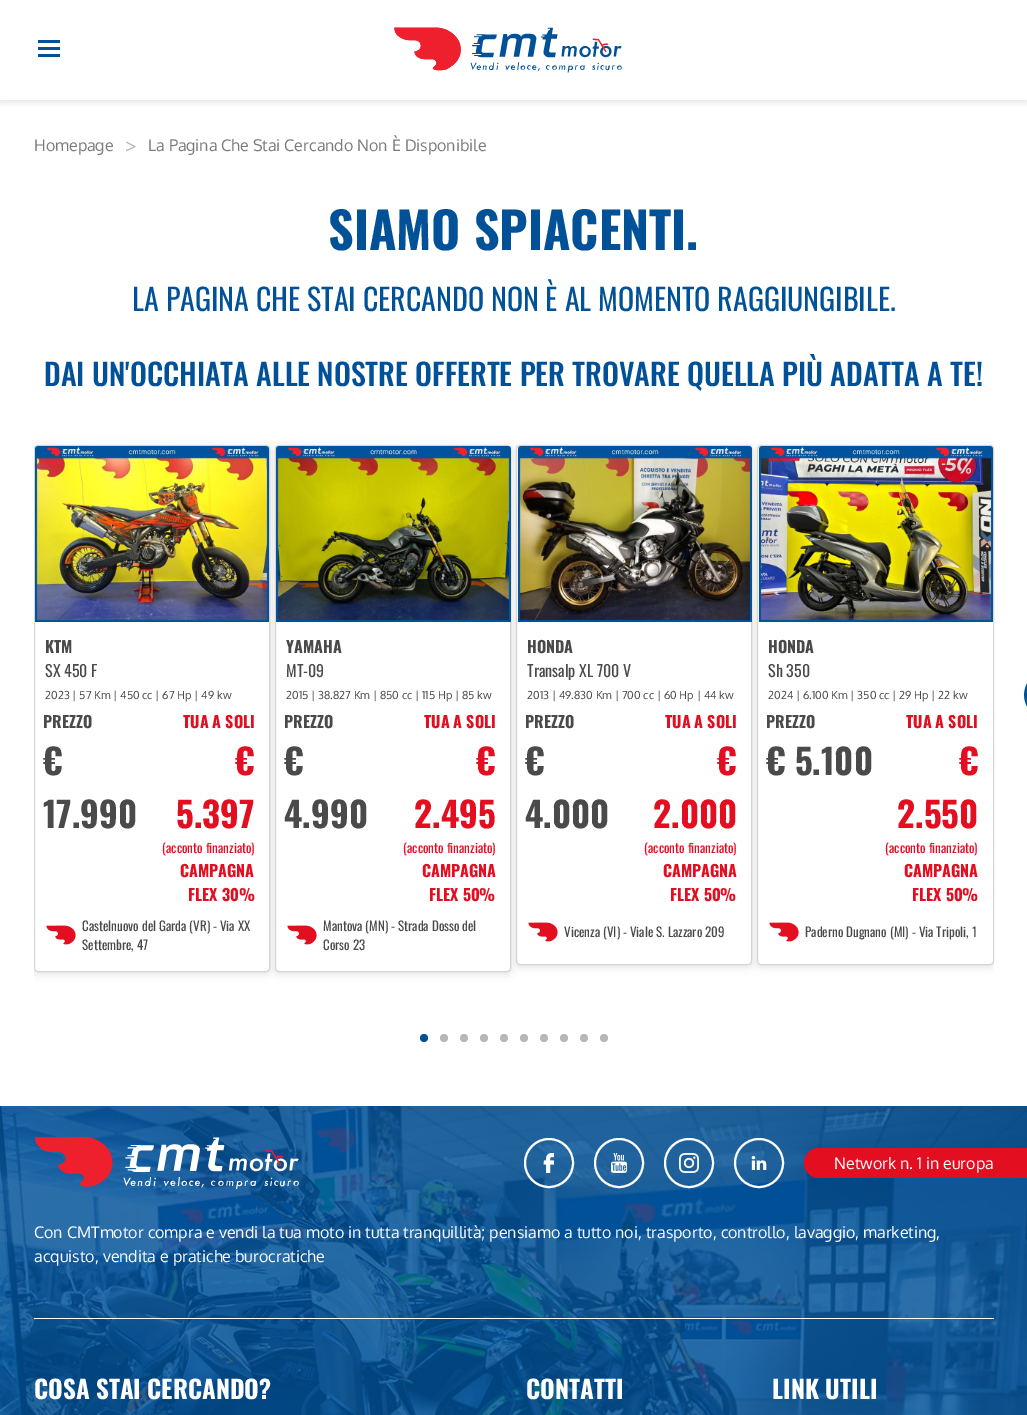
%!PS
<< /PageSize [1027 1415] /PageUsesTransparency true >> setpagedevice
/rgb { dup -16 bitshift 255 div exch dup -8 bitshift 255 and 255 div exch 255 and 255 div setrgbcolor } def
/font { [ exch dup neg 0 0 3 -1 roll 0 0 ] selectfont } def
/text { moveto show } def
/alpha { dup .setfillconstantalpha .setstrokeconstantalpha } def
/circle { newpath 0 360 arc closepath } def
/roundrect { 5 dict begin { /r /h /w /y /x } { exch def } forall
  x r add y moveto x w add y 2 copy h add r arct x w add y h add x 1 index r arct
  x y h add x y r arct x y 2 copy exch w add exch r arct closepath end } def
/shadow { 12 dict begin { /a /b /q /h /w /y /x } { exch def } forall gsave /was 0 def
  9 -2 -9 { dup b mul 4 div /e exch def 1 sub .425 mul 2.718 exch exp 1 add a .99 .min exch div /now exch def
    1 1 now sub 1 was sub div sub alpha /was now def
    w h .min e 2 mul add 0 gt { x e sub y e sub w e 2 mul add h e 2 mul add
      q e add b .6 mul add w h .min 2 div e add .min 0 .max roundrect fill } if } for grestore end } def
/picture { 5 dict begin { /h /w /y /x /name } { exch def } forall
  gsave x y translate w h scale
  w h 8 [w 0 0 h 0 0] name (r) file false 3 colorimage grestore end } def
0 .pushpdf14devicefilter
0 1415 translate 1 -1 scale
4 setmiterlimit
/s1 { /Oxygen-Regular 16 font 16#7A7A7A rgb } def
/s2 { /Oxygen-Regular 20 font 16#B5B5B5 rgb } def
/s3 { /Oswald-Bold 50 font 16#005197 rgb } def
/s4 { /Oswald-Regular 30 font 16#005197 rgb } def
/s5 { /Oswald-Medium 30 font 16#005197 rgb } def
/s6 { /Oswald-Bold 16 font 16#4A4A4A rgb } def
/s7 { /Oswald-Regular 16 font 16#4A4A4A rgb } def
/s8 { /Oxygen-Regular 11 font 16#4A4A4A rgb } def
/s9 { /Oswald-Bold 35 font 16#4A4A4A rgb } def
/s10 { /Oswald-Bold 16 font 16#E30E20 rgb } def
/s11 { /Oswald-Bold 35 font 16#E30E20 rgb } def
/s12 { /Oswald-Regular 13 font 16#E30E20 rgb } def
/s13 { /Oswald-Regular 13 font 16#4A4A4A rgb } def
/s14 { /Oxygen-Regular 16 font 16#FFFFFF rgb } def
/s15 { /Oswald-Bold 25 font 16#FFFFFF rgb } def
16#FFFFFF rgb
0 0 1027 1415 rectfill
gsave
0 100 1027 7 rectclip
16#636363 rgb
0 2 1027 100 0 4 0.2 shadow
grestore
16#005197 rgb
38 40 22 3 rectfill
38 47 22 3 rectfill
38 54 22 3 rectfill
(pic1.raw) 394 27 228 46 picture
s1
(Homepage) 34 151 text
s2
(>) 125 153 text
s1
(La Pagina Che Stai Cercando Non È Disponibile) 148 151 text
s3
(SIAMO SPIACENTI.) 328 250 text
s4
(LA PAGINA CHE STAI CERCANDO NON È AL MOMENTO RAGGIUNGIBILE.) 132 311 text
s5
(DAI UN'OCCHIATA ALLE NOSTRE OFFERTE PER TROVARE QUELLA PIÙ ADATTA A TE!) 44 386 text
gsave
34 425 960 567 rectclip
16#636363 rgb
34 447 236 527 4 4 0.2 shadow
grestore
16#FFFFFF rgb
34.5 445.5 235 526 3.5 roundrect gsave fill grestore
16#D6D6D6 rgb
stroke
(pic2.raw) 35 446 234 176 picture
s6
(KTM) 45 653 text
s7
(SX 450 F) 45 677 text
s8
(2023 | 57 Km | 450 cc | 67 Hp | 49 kw) 45 699 text
s6
(PREZZO) 43 728 text
s9
(€) 43 775 text
(17.990) 43 828 text
s10
(TUA A SOLI) 183 728 text
s11
(€) 235 775 text
(5.397) 176 828 text
s12
(\(acconto finanziato\)) 162 853 text
s10
(CAMPAGNA) 180 877 text
(FLEX 30%) 188 901 text
(pic3.raw) 46 925 30 20 picture
s13
(Castelnuovo del Garda \(VR\) - Via XX) 82 931 text
(Settembre, 47) 82 950 text
16#636363 rgb
275 447 236 527 4 4 0.2 shadow
16#FFFFFF rgb
275.5 445.5 235 526 3.5 roundrect gsave fill grestore
16#D6D6D6 rgb
stroke
(pic4.raw) 276 446 235 176 picture
s6
(YAMAHA) 286 653 text
s7
(MT-09) 286 677 text
s8
(2015 | 38.827 Km | 850 cc | 115 Hp | 85 kw) 286 699 text
s6
(PREZZO) 284 728 text
s9
(€) 284 775 text
(4.990) 284 828 text
s10
(TUA A SOLI) 424 728 text
s11
(€) 476 775 text
(2.495) 414 828 text
s12
(\(acconto finanziato\)) 403 853 text
s10
(CAMPAGNA) 422 877 text
(FLEX 50%) 429 901 text
(pic3.raw) 287 925 30 20 picture
s13
(Mantova \(MN\) - Strada Dosso del) 323 931 text
(Corso 23) 323 950 text
16#636363 rgb
516 447 236 520 4 4 0.2 shadow
16#FFFFFF rgb
516.5 445.5 235 519 3.5 roundrect gsave fill grestore
16#D6D6D6 rgb
stroke
(pic5.raw) 518 446 234 176 picture
s6
(HONDA) 527 653 text
s7
(Transalp XL 700 V) 527 677 text
s8
(2013 | 49.830 Km | 700 cc | 60 Hp | 44 kw) 527 699 text
s6
(PREZZO) 525 728 text
s9
(€) 525 775 text
(4.000) 525 828 text
s10
(TUA A SOLI) 665 728 text
s11
(€) 717 775 text
(2.000) 653 828 text
s12
(\(acconto finanziato\)) 644 853 text
s10
(CAMPAGNA) 663 877 text
(FLEX 50%) 670 901 text
(pic3.raw) 528 922 30 20 picture
s13
(Vicenza \(VI\) - Viale S. Lazzaro 209) 564 937 text
gsave
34 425 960 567 rectclip
16#636363 rgb
757 447 237 520 4 4 0.2 shadow
grestore
16#FFFFFF rgb
757.5 445.5 236 519 3.5 roundrect gsave fill grestore
16#D6D6D6 rgb
stroke
(pic6.raw) 759 446 234 176 picture
s6
(HONDA) 768 653 text
s7
(Sh 350) 768 677 text
s8
(2024 | 6.100 Km | 350 cc | 29 Hp | 22 kw) 768 699 text
s6
(PREZZO) 766 728 text
s9
(€ 5.100) 766 775 text
s10
(TUA A SOLI) 906 728 text
s11
(€) 959 775 text
(2.550) 897 828 text
s12
(\(acconto finanziato\)) 885 853 text
s10
(CAMPAGNA) 904 877 text
(FLEX 50%) 912 901 text
(pic3.raw) 769 922 30 20 picture
s13
(Paderno Dugnano \(MI\) - Via Tripoli, 1) 805 937 text
(pic7.raw) 1024 683 3 24 picture
16#005197 rgb
424 1038 4 circle fill
16#B8B8B8 rgb
444 1038 4 circle fill
464 1038 4 circle fill
484 1038 4 circle fill
504 1038 4 circle fill
524 1038 4 circle fill
544 1038 4 circle fill
564 1038 4 circle fill
584 1038 4 circle fill
604 1038 4 circle fill
(pic8.raw) 0 1106 1027 309 picture
16#FFFFFF rgb
34 1318 960 1 rectfill
(pic9.raw) 35 1137 264 52 picture
2 setlinewidth
549 1163 24 circle stroke
(pic10.raw) 543 1153 11 20 picture
619 1163 24 circle stroke
(pic11.raw) 611 1153 16 20 picture
689 1163 24 circle stroke
(pic12.raw) 679 1153 20 20 picture
759 1163 24 circle stroke
(pic13.raw) 751 1156 16 14 picture
16#E30E20 rgb
819 1148 moveto 994 1148 lineto 994 1178 lineto 819 1178 lineto 810.5 1178 804 1171.5 804 1163 curveto 804 1154.5 810.5 1148 819 1148 curveto closepath fill
s14
(Network n. 1 in europa) 834 1169 text
16#E30E20 rgb
994 1148 33 30 rectfill
s14
(Con CMTmotor compra e vendi la tua moto in tutta tranquillità; pensiamo a tutto noi, trasporto, controllo, lavaggio, marketing,) 34 1238 text
(acquisto, vendita e pratiche burocratiche) 34 1262 text
s15
(COSA STAI CERCANDO?) 34 1399 text
(CONTATTI) 526 1399 text
(LINK UTILI) 772 1399 text
.poppdf14devicefilter showpage
